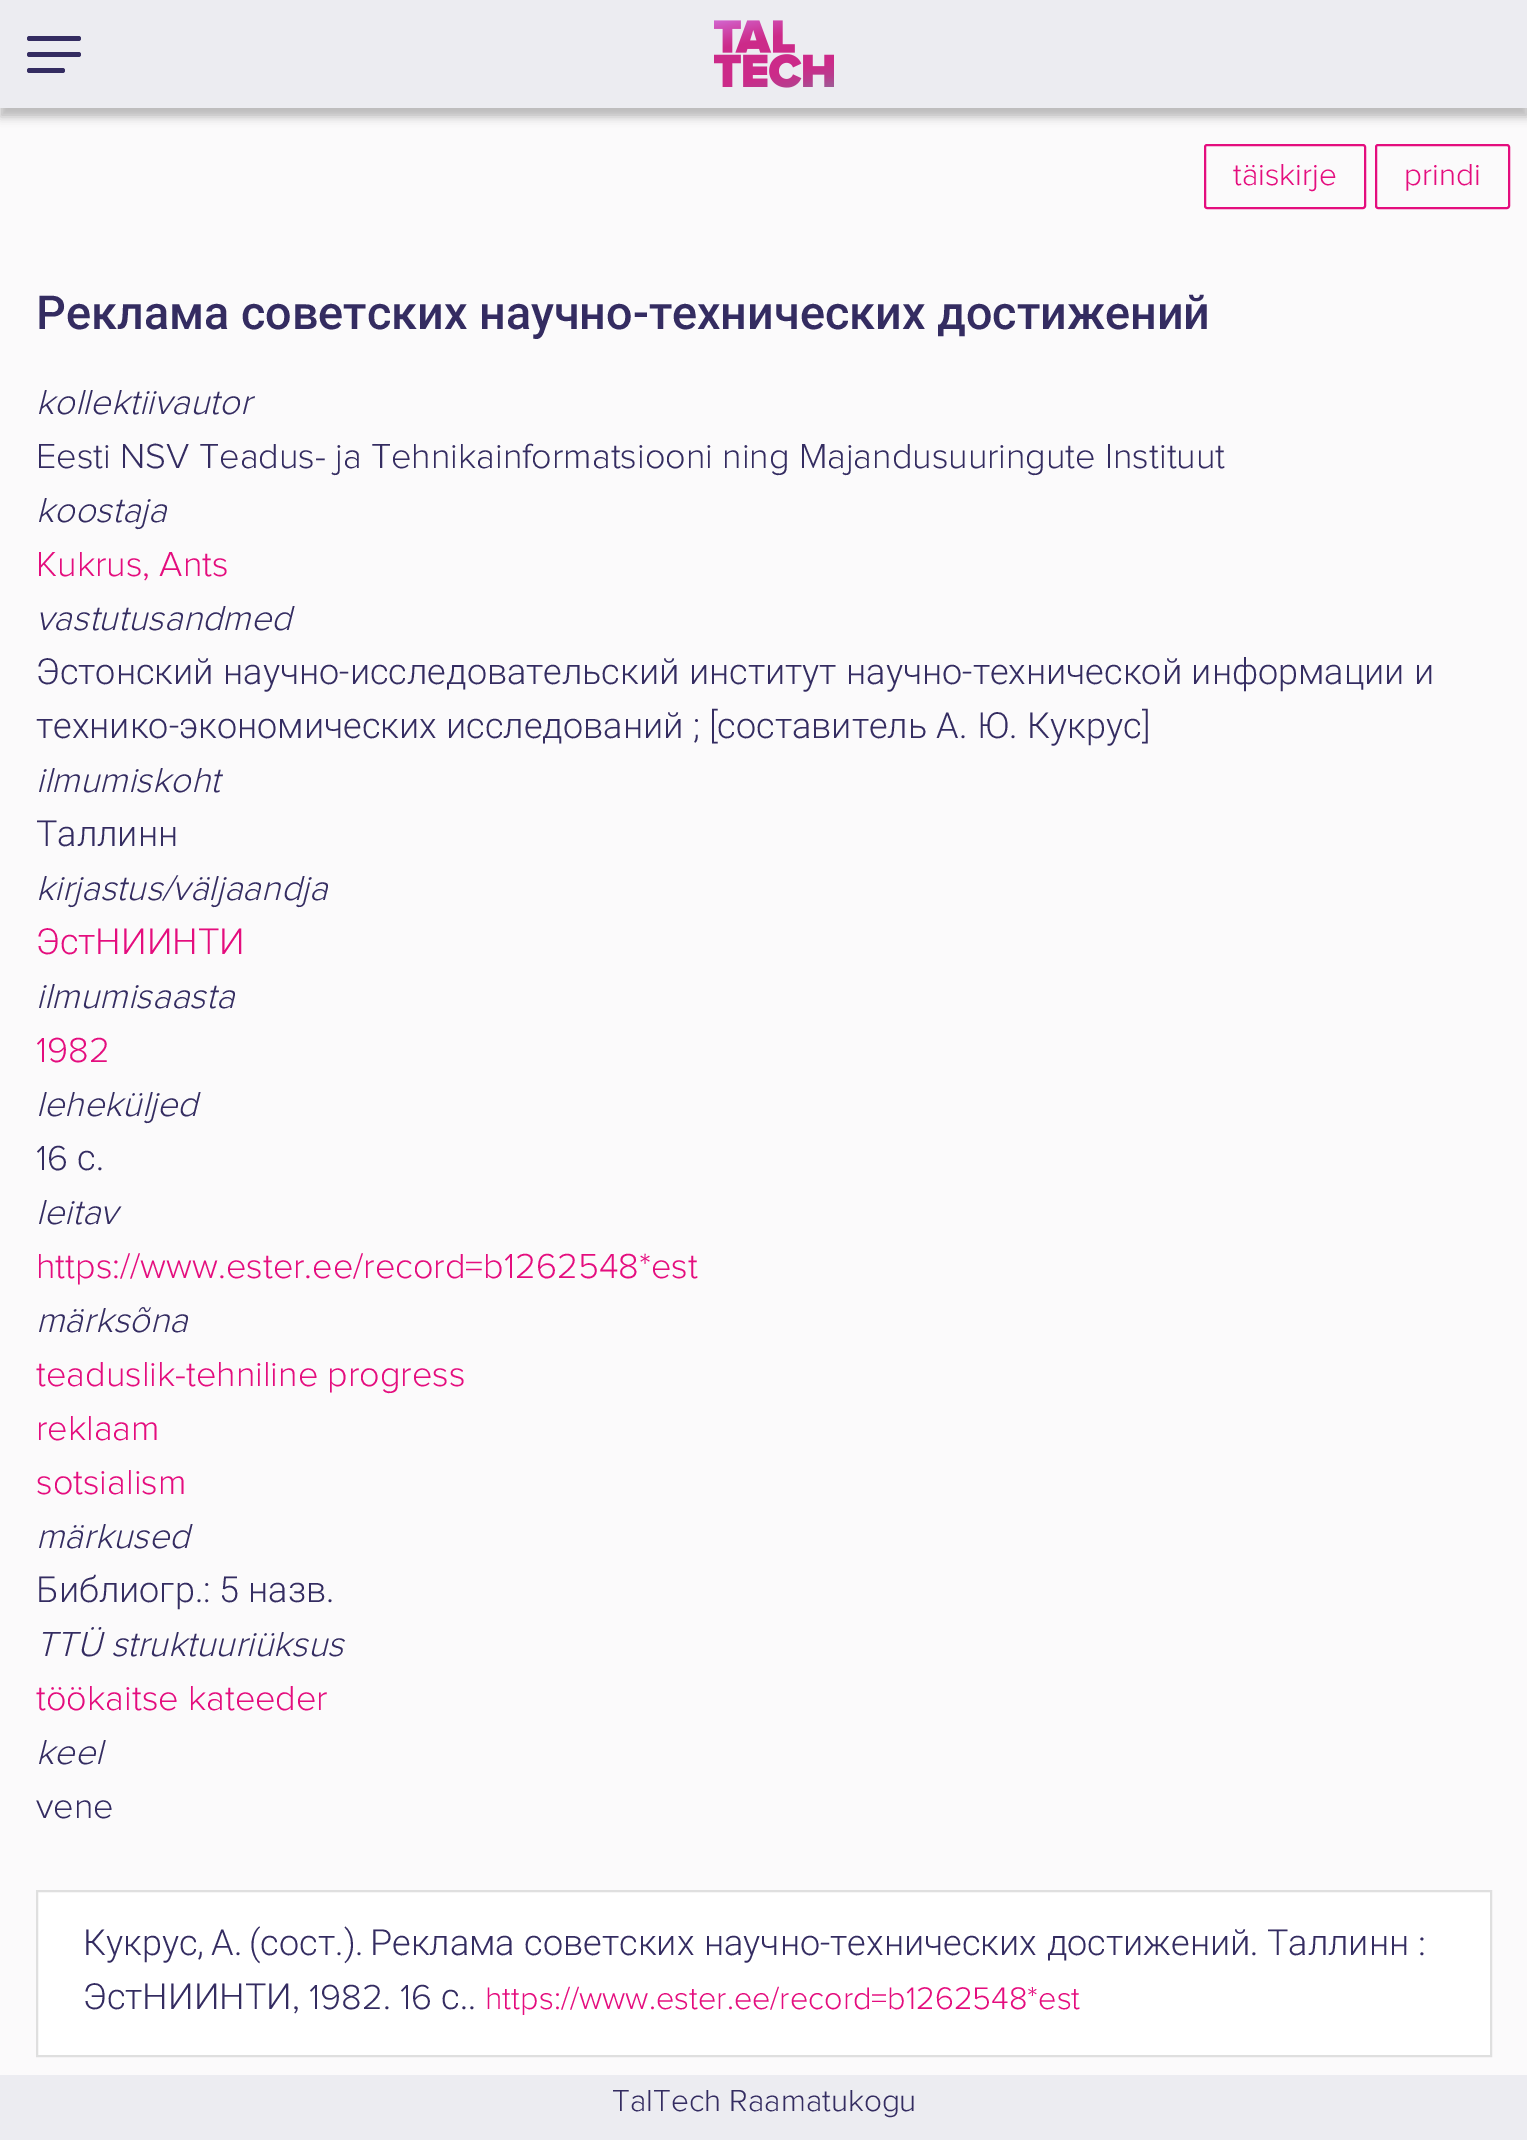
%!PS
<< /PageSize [1527 2140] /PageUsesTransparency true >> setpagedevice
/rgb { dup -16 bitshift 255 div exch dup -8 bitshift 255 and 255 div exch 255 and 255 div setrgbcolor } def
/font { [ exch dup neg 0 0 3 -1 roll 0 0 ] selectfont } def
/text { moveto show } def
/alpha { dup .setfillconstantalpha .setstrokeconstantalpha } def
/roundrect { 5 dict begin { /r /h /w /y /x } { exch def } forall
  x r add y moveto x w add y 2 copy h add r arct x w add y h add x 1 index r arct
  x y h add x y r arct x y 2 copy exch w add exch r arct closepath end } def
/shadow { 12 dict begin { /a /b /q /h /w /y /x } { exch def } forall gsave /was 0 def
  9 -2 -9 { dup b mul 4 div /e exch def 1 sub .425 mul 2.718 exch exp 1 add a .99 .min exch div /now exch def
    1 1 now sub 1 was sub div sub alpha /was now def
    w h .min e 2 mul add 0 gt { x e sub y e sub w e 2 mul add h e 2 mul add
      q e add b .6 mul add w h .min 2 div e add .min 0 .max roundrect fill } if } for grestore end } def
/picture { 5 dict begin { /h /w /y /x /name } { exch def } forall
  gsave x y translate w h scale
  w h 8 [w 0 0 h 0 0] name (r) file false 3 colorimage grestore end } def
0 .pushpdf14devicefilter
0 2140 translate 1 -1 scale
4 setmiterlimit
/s1 { /ProximaNova-Light 31.5 font 16#E40D7E rgb } def
/s2 { /Roboto-Medium 46.8 font 16#342C61 rgb } def
/s3 { /ProximaNova-LightItalic 36 font 16#342C61 rgb } def
/s4 { /ProximaNova-Light 36 font 16#342C61 rgb } def
/s5 { /ProximaNova-Light 36 font 16#E40D7E rgb } def
/s6 { /Roboto-Light 36 font 16#342C61 rgb } def
/s7 { /Roboto-Light 36 font 16#E40D7E rgb } def
/s8 { /ProximaNova-Light 32.4 font 16#E40D7E rgb } def
/s9 { /ProximaNova-Light 31.5 font 16#342C61 rgb } def
16#FBFAFB rgb
0 0 1527 2140 rectfill
16#000000 rgb
0 9 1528 108 0 4.5 0.25 shadow
16#ECECF1 rgb
0 0 1527 108 rectfill
16#342C61 rgb
27 52 54 5 2.5 roundrect fill
27 36 54 5 2.5 roundrect fill
27 68 38 5 2.5 roundrect fill
(pic1.raw) 714 20 120 68 picture
16#E40D7E rgb
2 setlinewidth
1205 145 160 63 2 roundrect stroke
s1
(täiskirje) 1233 185 text
1376 145 133 63 2 roundrect stroke
(prindi) 1404 185 text
s2
(Реклама советских научно-технических достижений) 36 329 text
s3
(kollektiivautor) 36 414 text
s4
(Eesti NSV Teadus- ja Tehnikainformatsiooni ning Majandusuuringute Instituut) 36 468 text
s3
(koostaja) 36 522 text
s5
(Kukrus, Ants) 36 576 text
s3
(vastutusandmed) 36 630 text
/Roboto-Light 36 font
36 684 moveto 0.75 0 32 (Эстонский научно-исследовательский институт научно-технической информации и) widthshow
36 738 moveto 0.5 0 32 (технико-экономических исследований ; [составитель А. Ю. Кукрус]) widthshow
s3
(ilmumiskoht) 36 792 text
s6
(Таллинн) 36 846 text
s3
(kirjastus/väljaandja) 36 900 text
s7
(ЭстНИИНТИ) 36 954 text
s3
(ilmumisaasta) 36 1008 text
s5
(1982) 36 1062 text
s3
(leheküljed) 36 1116 text
s4
(16) 36 1170 text
s6
(с) 77 1170 text
s4
(.) 96 1170 text
s3
(leitav) 36 1224 text
s5
(https://www.ester.ee/record=b1262548*est) 36 1278 text
s3
(märksõna) 36 1332 text
s5
(teaduslik-tehniline progress) 36 1386 text
(reklaam) 36 1440 text
(sotsialism) 36 1494 text
s3
(märkused) 36 1548 text
s6
(Библиогр.: 5 назв.) 36 1602 text
s3
(TTÜ struktuuriüksus) 36 1656 text
s5
(töökaitse kateeder) 36 1710 text
s3
(keel) 36 1764 text
s4
(vene) 36 1818 text
16#FFFFFF rgb
37 1891 moveto 1491 1891 lineto 1491 2056 lineto 37 2056 lineto closepath gsave fill grestore
16#DFDFDF rgb
stroke
/Roboto-Light 36 font
16#342C61 rgb
83 1955 moveto -2 0 32 (Кукрус, А. \(сост.\).) widthshow
370 1955 moveto 1 0 32 (Реклама советских научно-технических достижений) widthshow
s4
(.) 1250 1955 text
s6
(Таллинн) 1267 1955 text
s4
(:) 1418 1955 text
s6
(ЭстНИИНТИ) 83 2009 text
s4
(, 1982. 16) 292 2009 text
s6
(с) 441 2009 text
s4
(..) 460 2009 text
s8
(https://www.ester.ee/record=b1262548*est) 485 2009 text
16#ECECF1 rgb
0 2075 1527 65 rectfill
s9
(TalTech Raamatukogu) 612 2111 text
.poppdf14devicefilter showpage
